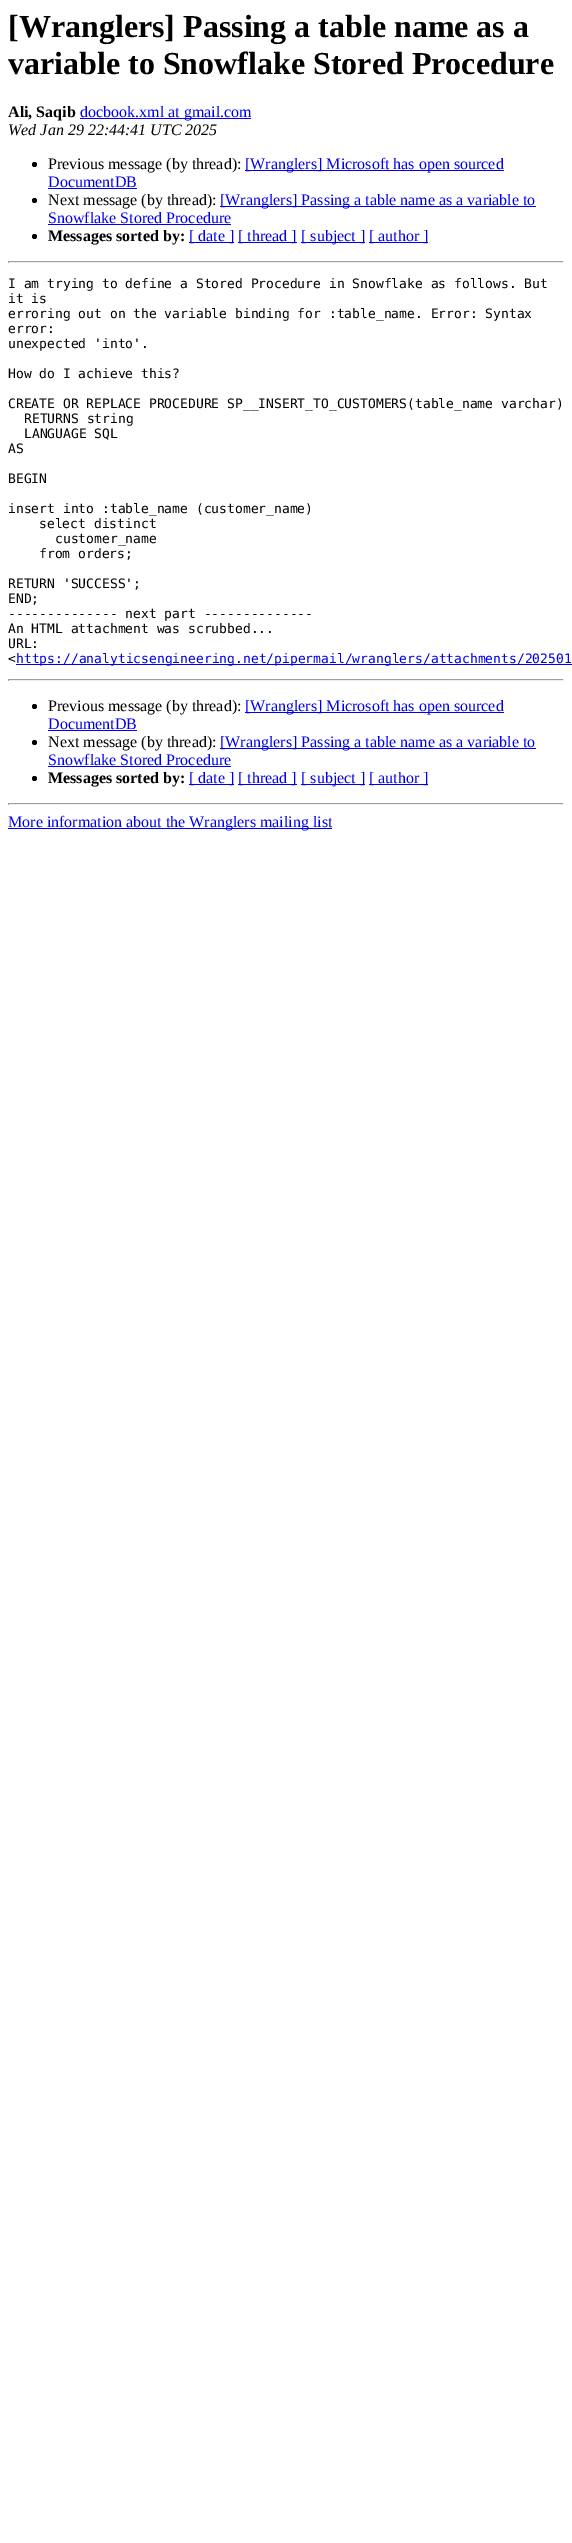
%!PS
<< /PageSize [572 2543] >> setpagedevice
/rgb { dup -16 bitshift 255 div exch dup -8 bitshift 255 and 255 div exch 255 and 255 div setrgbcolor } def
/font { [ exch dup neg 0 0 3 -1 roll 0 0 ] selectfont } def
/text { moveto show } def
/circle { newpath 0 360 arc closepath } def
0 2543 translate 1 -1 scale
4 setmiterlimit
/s1 { /LiberationSerif-Bold 32 font 16#000000 rgb } def
/s2 { /LiberationSerif-Bold 16 font 16#000000 rgb } def
/s3 { /LiberationSerif-Regular 16 font 16#0000EE rgb } def
/s4 { /LiberationSerif-Italic 16 font 16#000000 rgb } def
/s5 { /LiberationSerif-Regular 16 font 16#000000 rgb } def
/s6 { /DejaVuSansMono-Regular 13 font 16#000000 rgb } def
/s7 { /DejaVuSansMono-Regular 13 font 16#0000EE rgb } def
16#FFFFFF rgb
0 0 572 2543 rectfill
s1
([Wranglers] Passing a table name as a) 8 37 text
(variable to Snowflake Stored Procedure) 8 74 text
s2
(Ali, Saqib) 8 117 text
16#0000EE rgb
80 118 171 1 rectfill
s3
(docbook.xml at gmail.com) 80 117 text
s4
(Wed Jan 29 22:44:41 UTC 2025) 8 135 text
34.5 164.5 2.5 circle fill
s5
(Previous message \(by thread\):) 48 169 text
16#0000EE rgb
245 170 259 1 rectfill
([Wranglers] Microsoft has open sourced) 245 169 text
(DocumentDB) 48 187 text
48 188 89 1 rectfill
16#000000 rgb
34.5 200.5 2.5 circle fill
(Next message \(by thread\):) 48 205 text
16#0000EE rgb
220 206 316 1 rectfill
([Wranglers] Passing a table name as a variable to) 220 205 text
(Snowflake Stored Procedure) 48 223 text
48 224 183 1 rectfill
16#000000 rgb
34.5 236.5 2.5 circle fill
s2
(Messages sorted by:) 48 241 text
16#0000EE rgb
189 242 45 1 rectfill
s3
([ date ]) 189 241 text
238 242 59 1 rectfill
([ thread ]) 238 241 text
301 242 64 1 rectfill
([ subject ]) 301 241 text
369 242 59 1 rectfill
([ author ]) 369 241 text
16#9F9F9F rgb
8 261 556 1 rectfill
16#EEEEEE rgb
563 261 1 2 rectfill
8 262 556 1 rectfill
16#9F9F9F rgb
8 261 1 2 rectfill
s6
(I am trying to define a Stored Procedure in Snowflake as follows. But) 8 288 text
(it is) 8 303 text
(erroring out on the variable binding for :table_name. Error: Syntax) 8 318 text
(error:) 8 333 text
(unexpected 'into'.) 8 348 text
(How do I achieve this?) 8 378 text
(CREATE OR REPLACE PROCEDURE SP__INSERT_TO_CUSTOMERS\(table_name varchar\)) 8 408 text
(RETURNS string) 24 423 text
(LANGUAGE SQL) 24 438 text
(AS) 8 453 text
(BEGIN) 8 483 text
(insert into :table_name \(customer_name\)) 8 513 text
(select distinct) 39 528 text
(customer_name) 55 543 text
(from orders;) 39 558 text
(RETURN 'SUCCESS';) 8 588 text
(END;) 8 603 text
(-------------- next part --------------) 8 618 text
(An HTML attachment was scrubbed...) 8 633 text
(URL:) 8 648 text
(<) 8 663 text
16#0000EE rgb
16 664 556 1 rectfill
(https://analyticsengineering.net/pipermail/wranglers/attachments/202501) 16 663 text
16#9F9F9F rgb
8 679 556 1 rectfill
16#EEEEEE rgb
563 679 1 2 rectfill
8 680 556 1 rectfill
16#9F9F9F rgb
8 679 1 2 rectfill
16#000000 rgb
34.5 706.5 2.5 circle fill
s5
(Previous message \(by thread\):) 48 711 text
16#0000EE rgb
245 712 259 1 rectfill
([Wranglers] Microsoft has open sourced) 245 711 text
(DocumentDB) 48 729 text
48 730 89 1 rectfill
16#000000 rgb
34.5 742.5 2.5 circle fill
(Next message \(by thread\):) 48 747 text
16#0000EE rgb
220 748 316 1 rectfill
([Wranglers] Passing a table name as a variable to) 220 747 text
(Snowflake Stored Procedure) 48 765 text
48 766 183 1 rectfill
16#000000 rgb
34.5 778.5 2.5 circle fill
s2
(Messages sorted by:) 48 783 text
16#0000EE rgb
189 784 45 1 rectfill
s3
([ date ]) 189 783 text
238 784 59 1 rectfill
([ thread ]) 238 783 text
301 784 64 1 rectfill
([ subject ]) 301 783 text
369 784 59 1 rectfill
([ author ]) 369 783 text
16#9F9F9F rgb
8 803 556 1 rectfill
16#EEEEEE rgb
563 803 1 2 rectfill
8 804 556 1 rectfill
16#9F9F9F rgb
8 803 1 2 rectfill
16#0000EE rgb
8 828 324 1 rectfill
(More information about the Wranglers mailing list) 8 827 text
showpage
